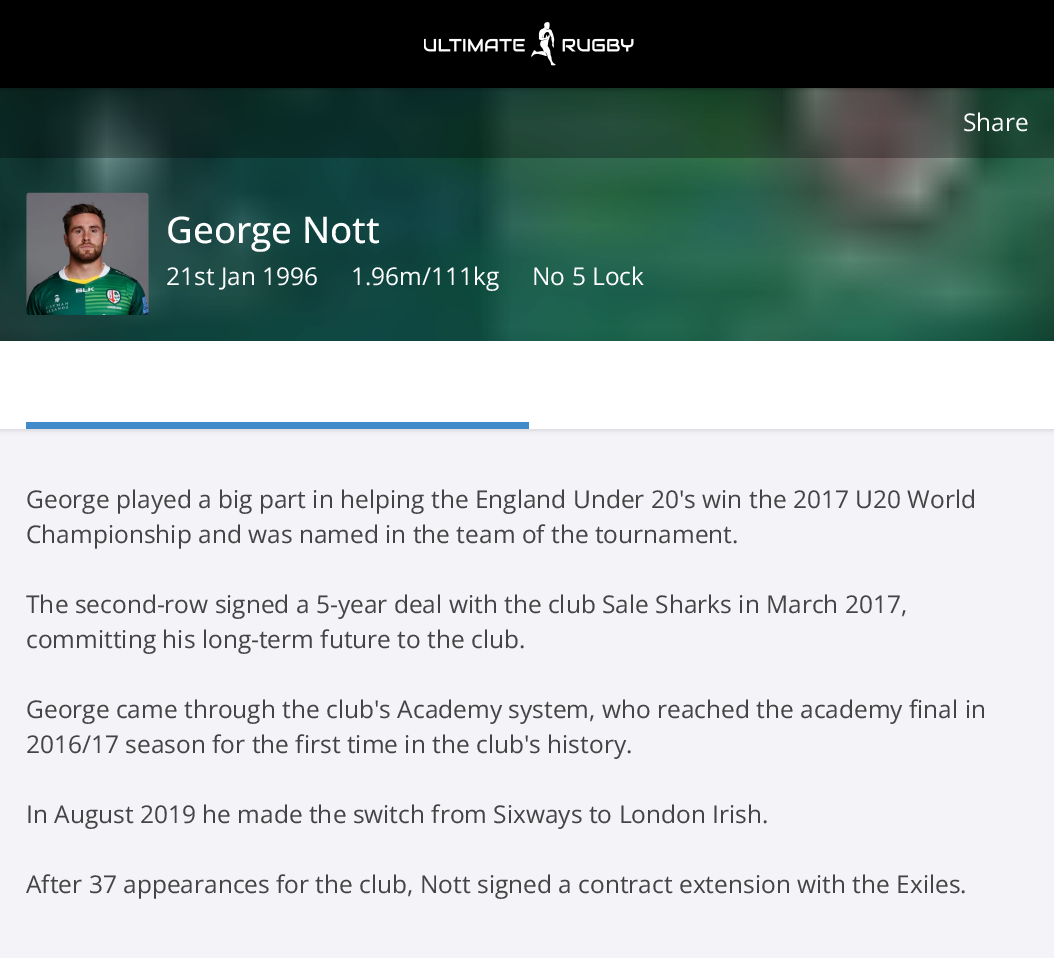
%!PS
<< /PageSize [1054 958] /PageUsesTransparency true >> setpagedevice
/rgb { dup -16 bitshift 255 div exch dup -8 bitshift 255 and 255 div exch 255 and 255 div setrgbcolor } def
/font { [ exch dup neg 0 0 3 -1 roll 0 0 ] selectfont } def
/text { moveto show } def
/alpha { dup .setfillconstantalpha .setstrokeconstantalpha } def
/roundrect { 5 dict begin { /r /h /w /y /x } { exch def } forall
  x r add y moveto x w add y 2 copy h add r arct x w add y h add x 1 index r arct
  x y h add x y r arct x y 2 copy exch w add exch r arct closepath end } def
/shadow { 12 dict begin { /a /b /q /h /w /y /x } { exch def } forall gsave /was 0 def
  9 -2 -9 { dup b mul 4 div /e exch def 1 sub .425 mul 2.718 exch exp 1 add a .99 .min exch div /now exch def
    1 1 now sub 1 was sub div sub alpha /was now def
    w h .min e 2 mul add 0 gt { x e sub y e sub w e 2 mul add h e 2 mul add
      q e add b .6 mul add w h .min 2 div e add .min 0 .max roundrect fill } if } for grestore end } def
/picture { 5 dict begin { /h /w /y /x /name } { exch def } forall
  gsave x y translate w h scale
  w h 8 [w 0 0 h 0 0] name (r) file false 3 colorimage grestore end } def
0 .pushpdf14devicefilter
0 958 translate 1 -1 scale
4 setmiterlimit
/s1 { /OpenSans-Regular 24.5 font 16#FFFFFF rgb } def
/s2 { /OpenSans-Medium 36.75 font 16#FFFFFF rgb } def
/s3 { /OpenSans-Regular 24.5 font 16#444444 rgb } def
16#F3F3F8 rgb
0 0 1054 958 rectfill
16#222222 rgb
0 88 1054 253 rectfill
(pic2.raw) 0 88 1054 253 picture
0.3 alpha
16#000000 rgb
0 88 1054 70 rectfill
1 alpha
0 2 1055 87 0 2 0.3 shadow
0 0 1054 88 rectfill
(pic1.raw) 424 22 210 44 picture
s1
(Share) 963 131 text
(pic3.raw) 26 192 123 123 picture
s2
(George Nott) 166 243 text
s1
(21st Jan 1996) 166 285 text
(1.96m/111kg) 351 285 text
(No 5 Lock) 532 285 text
16#000000 rgb
0 343 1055 88 0 2 0.1 shadow
16#FFFFFF rgb
0 341 1054 88 rectfill
16#428BCA rgb
26 422 503 7 rectfill
s3
(George played a big part in helping the England Under 20's win the 2017 U20 World) 26 508 text
(Championship and was named in the team of the tournament.) 26 543 text
(The second-row signed a 5-year deal with the club Sale Sharks in March 2017,) 26 613 text
(committing his long-term future to the club.) 26 648 text
(George came through the club's Academy system, who reached the academy final in) 26 718 text
(2016/17 season for the first time in the club's history.) 26 753 text
(In August 2019 he made the switch from Sixways to London Irish.) 26 823 text
(After 37 appearances for the club, Nott signed a contract extension with the Exiles.) 26 893 text
.poppdf14devicefilter showpage
